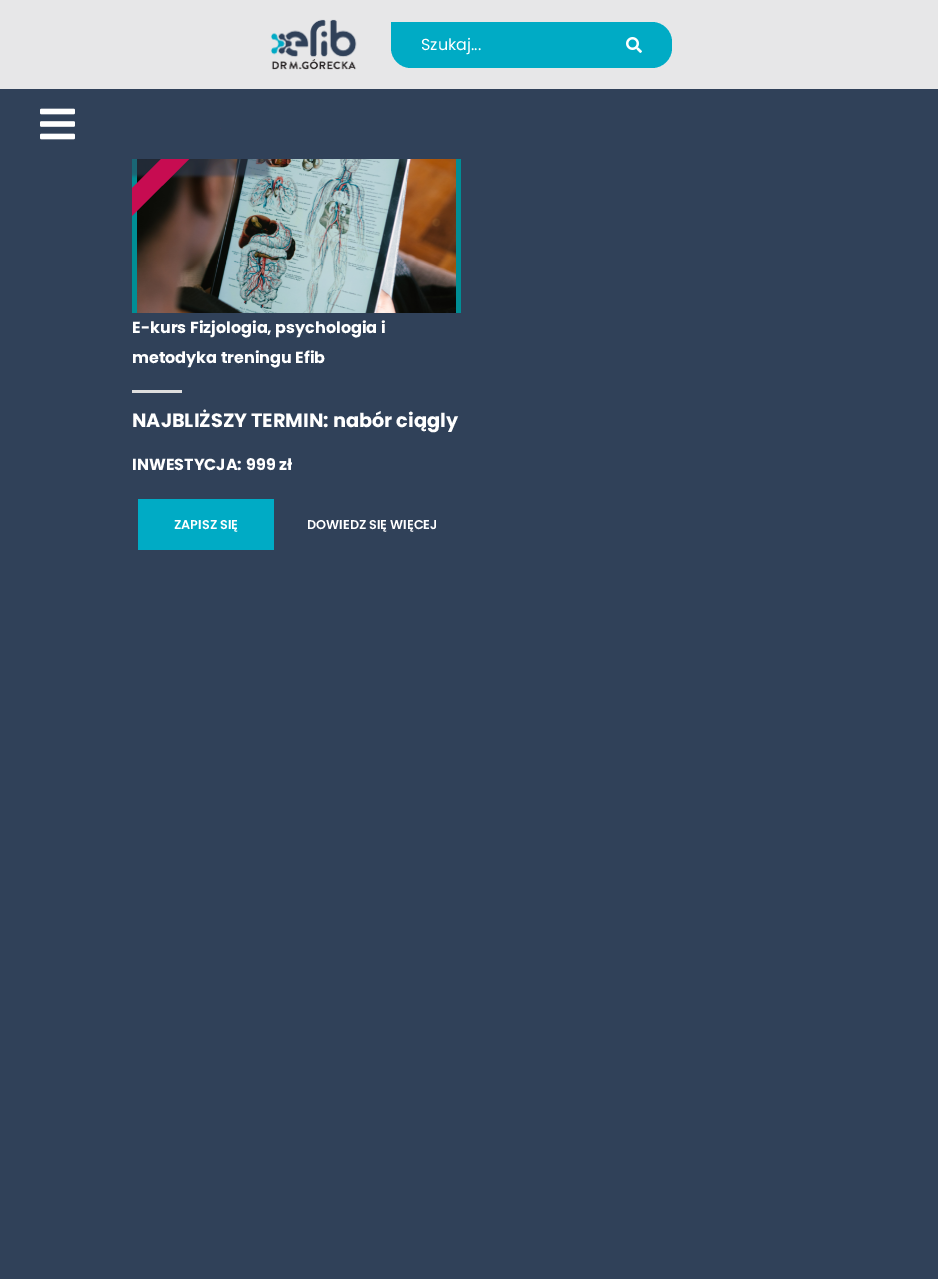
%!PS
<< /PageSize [938 1279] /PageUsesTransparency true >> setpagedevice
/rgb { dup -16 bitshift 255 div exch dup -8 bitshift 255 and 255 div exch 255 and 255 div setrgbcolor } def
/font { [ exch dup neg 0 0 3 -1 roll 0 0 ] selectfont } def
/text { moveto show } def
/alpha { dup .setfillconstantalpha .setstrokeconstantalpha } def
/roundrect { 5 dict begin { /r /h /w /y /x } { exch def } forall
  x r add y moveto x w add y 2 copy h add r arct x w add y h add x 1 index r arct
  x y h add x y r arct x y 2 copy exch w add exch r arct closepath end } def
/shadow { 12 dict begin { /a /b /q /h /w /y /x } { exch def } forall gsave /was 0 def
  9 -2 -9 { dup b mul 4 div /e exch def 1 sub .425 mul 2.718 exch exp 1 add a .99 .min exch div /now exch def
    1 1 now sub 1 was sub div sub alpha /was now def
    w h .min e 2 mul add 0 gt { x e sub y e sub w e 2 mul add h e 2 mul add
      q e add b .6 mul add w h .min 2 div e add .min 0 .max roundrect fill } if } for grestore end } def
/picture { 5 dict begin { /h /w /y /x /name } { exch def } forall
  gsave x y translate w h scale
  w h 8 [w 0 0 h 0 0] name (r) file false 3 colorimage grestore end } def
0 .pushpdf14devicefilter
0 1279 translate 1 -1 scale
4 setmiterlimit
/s1 { /Poppins-Regular 16 font 16#FFFFFF rgb } def
/s2 { /Poppins-Bold 16 font 16#FFFFFF rgb } def
/s3 { /Poppins-Bold 19.25 font 16#FFFFFF rgb } def
/s4 { /Poppins-SemiBold 12.75 font 16#FFFFFF rgb } def
16#304159 rgb
0 0 938 1279 rectfill
16#008E95 rgb
132 159 329 154 rectfill
(pic4.raw) 137 159 319 154 picture
gsave
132 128 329 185 rectclip
16#32435B rgb
69 156 200 20 0 1.5 0.54 shadow
grestore
gsave
132 128 329 185 rectclip
16#C70C51 rgb
91 229 moveto 233 87 lineto 247 101 lineto 105 243 lineto closepath fill
grestore
16#304159 rgb
161 128 59 31 rectfill
16#E7E7E8 rgb
0 0 938 89 rectfill
(pic1.raw) 270 19 87 51 picture
16#00ABC5 rgb
391 22 moveto 652 22 lineto 663 22 672 31 672 42 curveto 672 48 lineto 672 59 663 68 652 68 curveto 411 68 lineto 400 68 391 59 391 48 curveto closepath fill
s1
(Szukaj...) 421 50 text
(pic2.raw) 626 37 16 16 picture
(pic3.raw) 40 108 35 32 picture
s2
(E-kurs Fizjologia, psychologia i) 132 333 text
(metodyka treningu Efib) 132 363 text
16#DEDEDE rgb
132 390 50 3 rectfill
s3
(NAJBLIŻSZY TERMIN: nabór ciągly) 132 427 text
s2
(INWESTYCJA:) 132 470 text
(999 zł) 246 470 text
16#00ABC5 rgb
138 499 136 51 rectfill
s4
(ZAPISZ SIĘ) 174 529 text
(DOWIEDZ SIĘ WIĘCEJ) 307 529 text
.poppdf14devicefilter showpage
